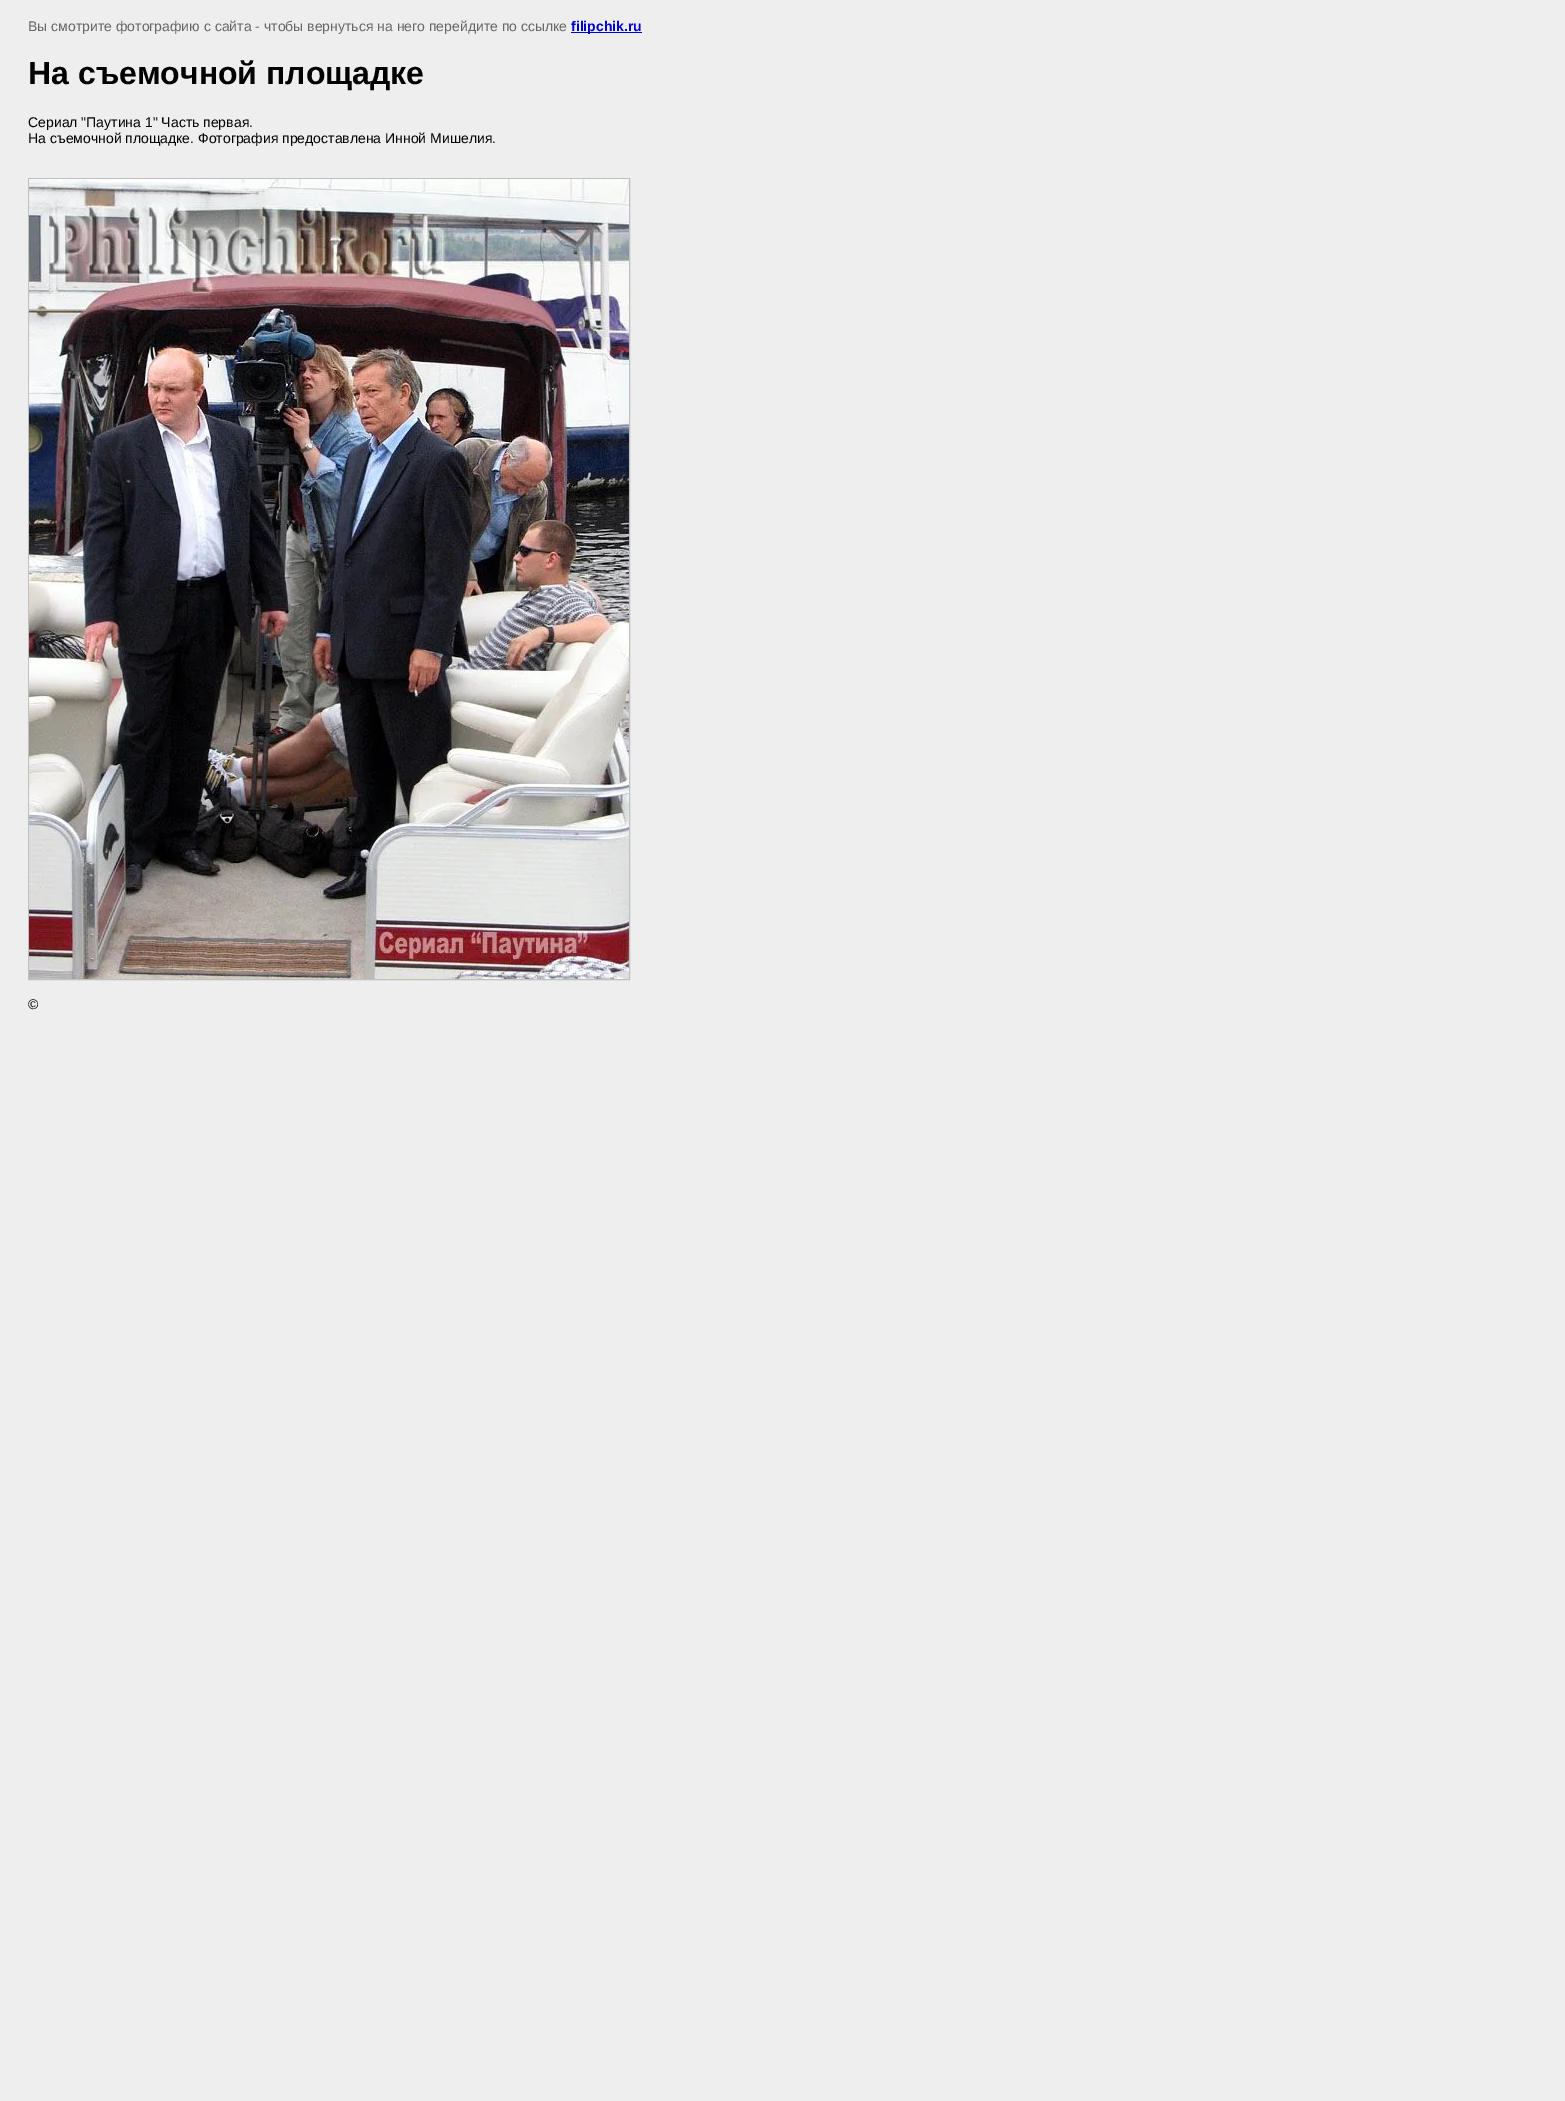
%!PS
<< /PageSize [1565 2101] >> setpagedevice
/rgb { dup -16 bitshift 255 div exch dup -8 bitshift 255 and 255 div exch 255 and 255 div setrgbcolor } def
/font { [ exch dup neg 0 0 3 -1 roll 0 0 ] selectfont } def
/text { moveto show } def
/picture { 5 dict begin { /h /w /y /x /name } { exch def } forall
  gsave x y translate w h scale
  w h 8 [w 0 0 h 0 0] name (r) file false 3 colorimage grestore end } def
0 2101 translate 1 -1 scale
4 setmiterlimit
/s1 { /LiberationSans-Regular 14 font 16#666666 rgb } def
/s2 { /LiberationSans-Bold 14 font 16#0000CC rgb } def
/s3 { /LiberationSans-Bold 32 font 16#000000 rgb } def
/s4 { /LiberationSans-Regular 14 font 16#000000 rgb } def
16#EEEEEE rgb
0 0 1565 2101 rectfill
s1
(Вы смотрите фотографию с сайта - чтобы вернуться на него перейдите по ссылке) 28 31 text
16#0000CC rgb
571 32 71 1 rectfill
s2
(filipchik.ru) 571 31 text
s3
(На съемочной площадке) 28 84 text
s4
(Сериал "Паутина 1" Часть первая.) 28 127 text
(На съемочной площадке. Фотография предоставлена Инной Мишелия.) 28 143 text
16#C0C0C0 rgb
28.5 178.5 601 801 rectstroke
(pic1.raw) 29 179 600 800 picture
s4
(©) 28 1009 text
showpage
